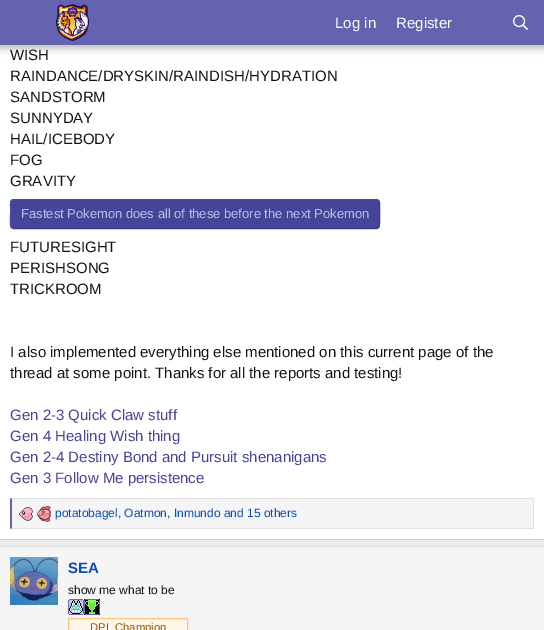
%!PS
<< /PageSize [544 630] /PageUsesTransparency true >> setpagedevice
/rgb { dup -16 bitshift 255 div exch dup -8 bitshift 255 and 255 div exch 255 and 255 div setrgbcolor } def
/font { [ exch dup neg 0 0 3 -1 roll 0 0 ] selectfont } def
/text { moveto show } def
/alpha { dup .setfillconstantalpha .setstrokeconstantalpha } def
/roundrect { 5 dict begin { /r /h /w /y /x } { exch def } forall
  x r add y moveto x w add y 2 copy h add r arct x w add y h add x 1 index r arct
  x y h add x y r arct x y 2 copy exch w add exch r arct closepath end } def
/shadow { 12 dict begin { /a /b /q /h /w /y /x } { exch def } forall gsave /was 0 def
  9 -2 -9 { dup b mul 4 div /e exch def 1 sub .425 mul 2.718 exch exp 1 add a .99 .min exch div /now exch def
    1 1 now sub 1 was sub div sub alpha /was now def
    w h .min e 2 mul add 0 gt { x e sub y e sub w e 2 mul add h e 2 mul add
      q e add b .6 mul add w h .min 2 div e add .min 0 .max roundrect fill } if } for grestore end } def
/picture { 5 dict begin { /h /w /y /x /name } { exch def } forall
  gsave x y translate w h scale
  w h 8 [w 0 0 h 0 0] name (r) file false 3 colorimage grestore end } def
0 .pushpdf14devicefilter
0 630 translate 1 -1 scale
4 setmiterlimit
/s1 { /LiberationSans-Regular 15 font 16#FFFFFF rgb } def
/s2 { /LiberationSans-Regular 15 font 16#141414 rgb } def
/s3 { /LiberationSans-Regular 13 font 16#BEBEE7 rgb } def
/s4 { /LiberationSans-Regular 15 font 16#444498 rgb } def
/s5 { /LiberationSans-Regular 12 font 16#094ABA rgb } def
/s6 { /LiberationSans-Bold 15 font 16#094ABA rgb } def
/s7 { /LiberationSans-Regular 12 font 16#141414 rgb } def
/s8 { /LiberationSans-Regular 11.25 font 16#915808 rgb } def
16#EBEBEB rgb
0 0 544 630 rectfill
16#FFFFFF rgb
0 45 544 494 rectfill
16#000000 rgb
-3 -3 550 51 0 4 0.3 shadow
16#6363B0 rgb
0 0 544 45 rectfill
(pic1.raw) 56 4 33 37 picture
s1
(Log in) 335 28 text
(Register) 396 28 text
(pic2.raw) 513 15 15 15 picture
16#CCCCCC rgb
0 539 544 1 rectfill
s2
(WISH) 10 60 text
(RAINDANCE/DRYSKIN/RAINDISH/HYDRATION) 10 81 text
(SANDSTORM) 10 102 text
(SUNNYDAY) 10 123 text
(HAIL/ICEBODY) 10 144 text
(FOG) 10 165 text
(GRAVITY) 10 186 text
16#444498 rgb
10 199 370 30 4 roundrect fill
16#3C3C86 rgb
378.5 200.5 moveto 380.5 202.5 379.5 211 379.5 214 curveto 379.5 221.5 lineto 379.5 224 380 227.5 377 228.5 curveto 13.5 228.5 lineto 11.5 227.5 lineto stroke
16#4C4CAA rgb
11.5 227.5 moveto 9.5 225.5 10.5 217 10.5 214 curveto 10.5 206.5 lineto 10.5 204 10 200.5 13 199.5 curveto 376.5 199.5 lineto 378.5 200.5 lineto stroke
s3
(Fastest Pokemon does all of these before the next Pokemon) 21 218 text
s2
(FUTURESIGHT) 10 252 text
(PERISHSONG) 10 273 text
(TRICKROOM) 10 294 text
(I also implemented everything else mentioned on this current page of the) 10 357 text
(thread at some point. Thanks for all the reports and testing!) 10 378 text
s4
(Gen 2-3 Quick Claw stuff) 10 420 text
(Gen 4 Healing Wish thing) 10 441 text
(Gen 2-4 Destiny Bond and Pursuit shenanigans) 10 462 text
(Gen 3 Follow Me persistence) 10 483 text
16#F5F5F5 rgb
12 499 521 29 rectfill
16#E0E0E0 rgb
10 498 moveto 534 498 lineto 533 499 lineto 12 499 lineto closepath fill
533 498 1 31 rectfill
534 529 moveto 10 529 lineto 12 528 lineto 533 528 lineto closepath fill
16#6363B0 rgb
10 529 moveto 10 498 lineto 12 499 lineto 12 528 lineto closepath fill
(pic3.raw) 19 507 14 14 picture
(pic4.raw) 37 506 14 16 picture
s5
(potatobagel, Oatmon, Inmundo and 15 others) 55 517 text
16#E0E0E0 rgb
0 546 544 1 rectfill
16#F5F5F5 rgb
0 547 544 83 rectfill
(pic5.raw) 10 557 48 48 picture
s6
(SEA) 68 573 text
s7
(show me what to be) 68 594 text
(pic6.raw) 68 599 16 16 picture
(pic7.raw) 84 599 16 16 picture
16#FEF4E7 rgb
68.5 618.5 119 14 1.5 roundrect gsave fill grestore
16#F8C37A rgb
stroke
s8
(DPL Champion) 90 631 text
.poppdf14devicefilter showpage
